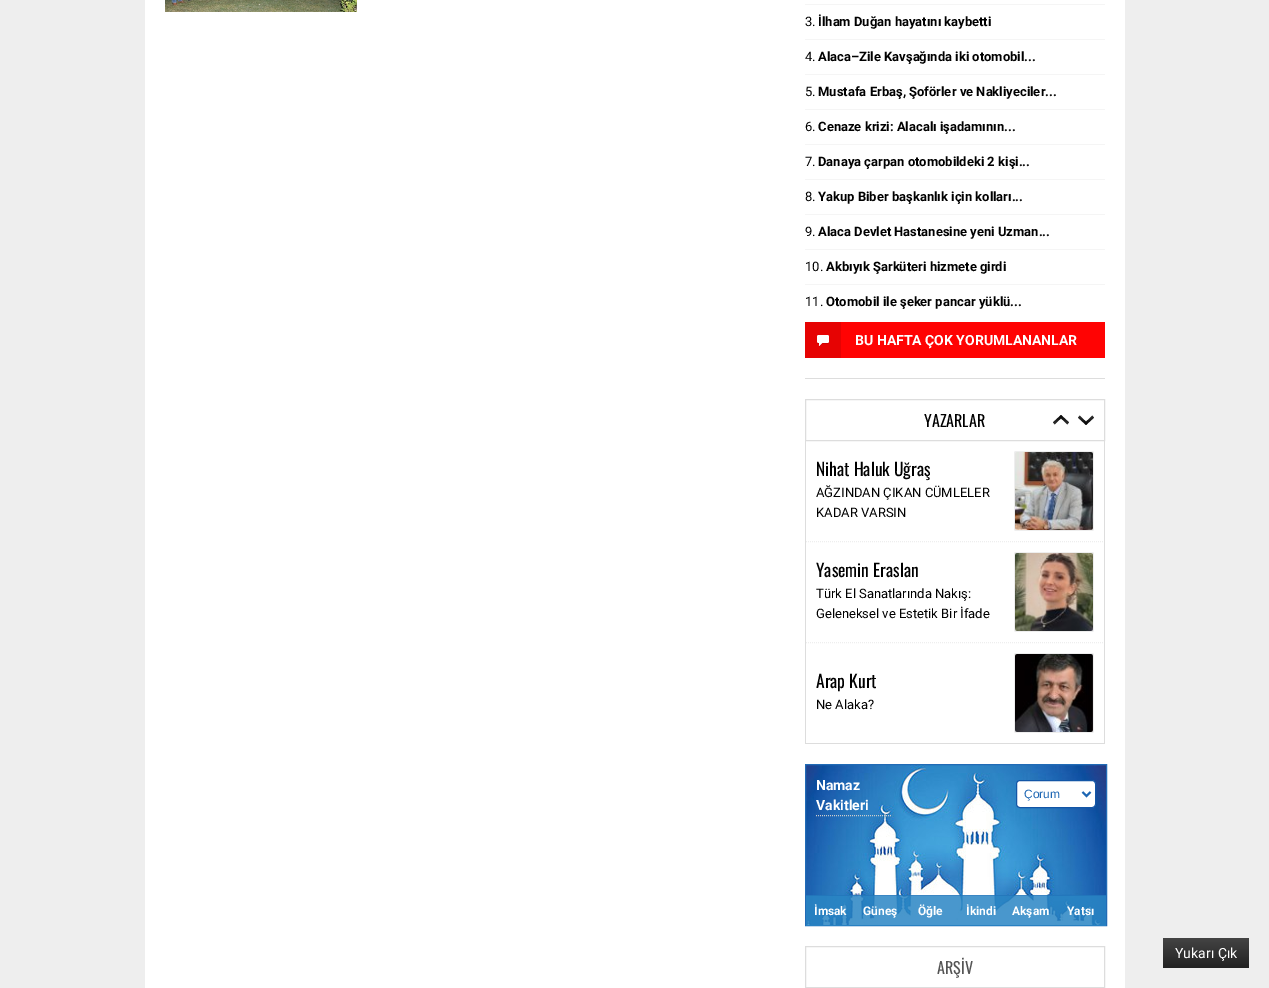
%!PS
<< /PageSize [1269 988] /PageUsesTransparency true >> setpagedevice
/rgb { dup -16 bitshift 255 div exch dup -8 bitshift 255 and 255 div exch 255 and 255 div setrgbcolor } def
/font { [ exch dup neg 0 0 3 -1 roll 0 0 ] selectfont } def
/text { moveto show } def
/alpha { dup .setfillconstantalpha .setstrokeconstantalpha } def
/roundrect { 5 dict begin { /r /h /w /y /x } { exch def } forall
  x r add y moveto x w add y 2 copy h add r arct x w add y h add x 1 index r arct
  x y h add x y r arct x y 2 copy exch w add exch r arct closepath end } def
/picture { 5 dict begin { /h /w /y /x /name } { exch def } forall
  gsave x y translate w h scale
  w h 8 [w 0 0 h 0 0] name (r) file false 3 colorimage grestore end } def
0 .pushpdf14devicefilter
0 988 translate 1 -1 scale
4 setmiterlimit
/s1 { /Roboto-Regular 13 font 16#000000 rgb } def
/s2 { /Roboto-Bold 13 font 16#000000 rgb } def
/s3 { /Roboto-Bold 14 font 16#FFFFFF rgb } def
/s4 { /Oswald-Regular 16 font 16#000000 rgb } def
/s5 { /Oswald-Regular 17.5 font 16#000000 rgb } def
/s6 { /LiberationSans-Regular 12 font 16#1D66B3 rgb } def
/s7 { /Roboto-Bold 12 font 16#FFFFFF rgb } def
/s8 { /Oswald-Regular 16 font 16#555555 rgb } def
/s9 { /Roboto-Regular 14 font 16#FFFFFF rgb } def
16#EEEEEE rgb
0 0 1269 988 rectfill
16#FFFFFF rgb
145 0 980 988 rectfill
(pic1.raw) 165 0 192 12 picture
16#DDDDDD rgb
805 378 300 1 rectfill
16#F5F5F5 rgb
805 4 300 1 rectfill
805 39 300 1 rectfill
s1
(3.) 805 26 text
s2
(İlham Duğan hayatını kaybetti) 818 26 text
16#F5F5F5 rgb
805 74 300 1 rectfill
s1
(4.) 805 61 text
s2
(Alaca–Zile Kavşağında iki otomobil...) 818 61 text
16#F5F5F5 rgb
805 109 300 1 rectfill
s1
(5.) 805 96 text
s2
(Mustafa Erbaş, Şoförler ve Nakliyeciler...) 818 96 text
16#F5F5F5 rgb
805 144 300 1 rectfill
s1
(6.) 805 131 text
s2
(Cenaze krizi: Alacalı işadamının...) 818 131 text
16#F5F5F5 rgb
805 179 300 1 rectfill
s1
(7.) 805 166 text
s2
(Danaya çarpan otomobildeki 2 kişi...) 818 166 text
16#F5F5F5 rgb
805 214 300 1 rectfill
s1
(8.) 805 201 text
s2
(Yakup Biber başkanlık için kolları...) 818 201 text
16#F5F5F5 rgb
805 249 300 1 rectfill
s1
(9.) 805 236 text
s2
(Alaca Devlet Hastanesine yeni Uzman...) 818 236 text
16#F5F5F5 rgb
805 284 300 1 rectfill
s1
(10.) 805 271 text
s2
(Akbıyık Şarküteri hizmete girdi) 826 271 text
s1
(11.) 805 306 text
s2
(Otomobil ile şeker pancar yüklü...) 826 306 text
16#FF0303 rgb
841 322 264 36 rectfill
16#E60303 rgb
805 322 36 36 rectfill
(pic2.raw) 817 335 12 12 picture
s3
(BU HAFTA ÇOK YORUMLANANLAR) 855 345 text
16#DDDDDD rgb
805.5 399.5 299 41 rectstroke
s4
(YAZARLAR) 924 427 text
(pic3.raw) 1053 415 16 10 picture
(pic4.raw) 1078 415 16 10 picture
16#DDDDDD rgb
1104 441 1 303 rectfill
805 743 300 1 rectfill
805 441 1 303 rectfill
16#EEEEEE rgb
[1 1] 0 setdash
806 541.5 moveto 1104 541.5 lineto stroke
s5
(Nihat Haluk Uğraş) 816 476 text
s1
(AĞZINDAN ÇIKAN CÜMLELER) 816 497 text
(KADAR VARSIN) 816 517 text
16#EEEEEE rgb
1014 451 80 80 2 roundrect fill
(pic5.raw) 1015 452 78 78 picture
806 642.5 moveto 1104 642.5 lineto stroke
s5
(Yasemin Eraslan) 816 577 text
s1
(Türk El Sanatlarında Nakış:) 816 598 text
(Geleneksel ve Estetik Bir İfade) 816 618 text
16#EEEEEE rgb
1014 552 80 80 2 roundrect fill
(pic6.raw) 1015 553 78 78 picture
s5
(Arap Kurt) 816 688 text
s1
(Ne Alaka?) 816 709 text
16#EEEEEE rgb
1014 653 80 80 2 roundrect fill
(pic7.raw) 1015 654 78 78 picture
(pic8.raw) 806 765 300 160 picture
16#216BB6 rgb
[] 0 setdash
805.5 764.5 301 161 rectstroke
16#CCCCCC rgb
[1 1] 0 setdash
816 815.5 moveto 891 815.5 lineto stroke
s3
(Namaz) 816 790 text
(Vakitleri) 816 810 text
1016.5 780.5 79 27 3.5 roundrect gsave fill grestore
16#1255A6 rgb
[] 0 setdash
stroke
16#1D66B3 rgb
2 setlinewidth
1082.5 792 moveto 1086.5 796 lineto 1090.5 792 lineto stroke
s6
(Çorum) 1024 798 text
0.85 alpha
16#2985C4 rgb
806 895 300 31 rectfill
0.25 alpha
16#1255A6 rgb
806 895 300 1 rectfill
1 alpha
s7
(İmsak) 814 915 text
(Güneş) 863 915 text
(Öğle) 918 915 text
(İkindi) 966 915 text
(Akşam) 1012 915 text
(Yatsı) 1067 915 text
16#DDDDDD rgb
1 setlinewidth
805.5 946.5 299 41 rectstroke
s8
(ARŞİV) 937 974 text
gsave 1163 938 86 30 2 roundrect clip newpath
<< /ShadingType 2 /ColorSpace /DeviceRGB /Coords [1206 938 1206 968] /Extend [true true] /Function << /FunctionType 2 /Domain [0 1] /C0 [0.267 0.267 0.267] /C1 [0.133 0.133 0.133] /N 1 >> >> shfill grestore
s9
(Yukarı Çık) 1175 958 text
.poppdf14devicefilter showpage
